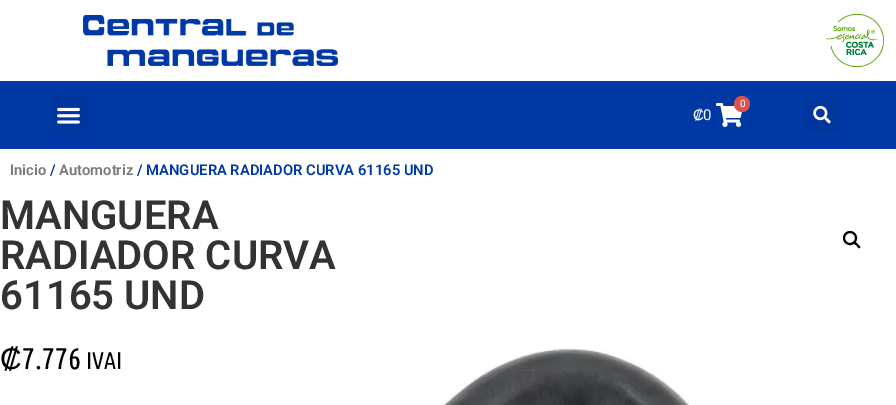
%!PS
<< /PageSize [896 405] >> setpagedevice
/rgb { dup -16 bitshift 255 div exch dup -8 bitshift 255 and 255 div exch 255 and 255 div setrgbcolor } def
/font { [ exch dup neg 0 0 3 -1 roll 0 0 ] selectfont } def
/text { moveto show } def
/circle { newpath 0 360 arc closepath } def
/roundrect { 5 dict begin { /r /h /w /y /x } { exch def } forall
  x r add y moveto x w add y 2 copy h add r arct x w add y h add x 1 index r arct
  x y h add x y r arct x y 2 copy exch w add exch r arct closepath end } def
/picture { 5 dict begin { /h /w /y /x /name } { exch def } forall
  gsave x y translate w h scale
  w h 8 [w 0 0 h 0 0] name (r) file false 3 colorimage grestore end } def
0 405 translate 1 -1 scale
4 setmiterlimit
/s1 { /Roboto-Regular 10 font 16#FFFFFF rgb } def
/s2 { /LiberationSans-Regular 15 font 16#FFFFFF rgb } def
/s3 { /Roboto-Regular 15 font 16#FFFFFF rgb } def
/s4 { /Roboto-SemiBold 14.75 font 16#7A7A7A rgb } def
/s5 { /Roboto-SemiBold 14.75 font 16#0139A6 rgb } def
/s6 { /Roboto-SemiBold 40 font 16#333333 rgb } def
/s7 { /LiberationSans-Regular 30 font 16#000000 rgb } def
/s8 { /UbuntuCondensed-Regular 30 font 16#000000 rgb } def
/s9 { /UbuntuCondensed-Regular 24 font 16#000000 rgb } def
16#FFFFFF rgb
0 0 896 405 rectfill
(pic1.raw) 83 15 255 51 picture
(pic2.raw) 826 13 58 55 picture
16#0039A6 rgb
0 81 896 68 rectfill
16#00369E rgb
50 96 38 38 rectfill
(pic3.raw) 57 107 23 17 picture
(pic4.raw) 716 103 27 24 picture
16#D9534F rgb
742 104 8 circle fill
s1
(0) 740 107 text
s2
(₡) 693 120 text
s3
(0) 703 120 text
16#00369E rgb
804 98 35 35 3 roundrect fill
(pic5.raw) 813 105 18 19 picture
s4
(Inicio) 10 175 text
s5
(/) 50 175 text
s4
(Automotriz) 59 175 text
s5
(/ MANGUERA RADIADOR CURVA 61165 UND) 137 175 text
s6
(MANGUERA) 0 229 text
(RADIADOR CURVA) 0 269 text
(61165 UND) 0 309 text
s7
(₡) 0 369 text
s8
(7.776) 22 369 text
s9
(IVAI) 86 369 text
2 setlinewidth
850 238 6 circle stroke
854 242 moveto 855.5 241 857 243.5 857.5 244 curveto 858.5 245 861 246.5 860 248 curveto 858.5 249 857 246 856.5 245.5 curveto 855.5 245 853 243.5 854 242 curveto closepath fill
(pic6.raw) 441 348 249 57 picture
showpage
